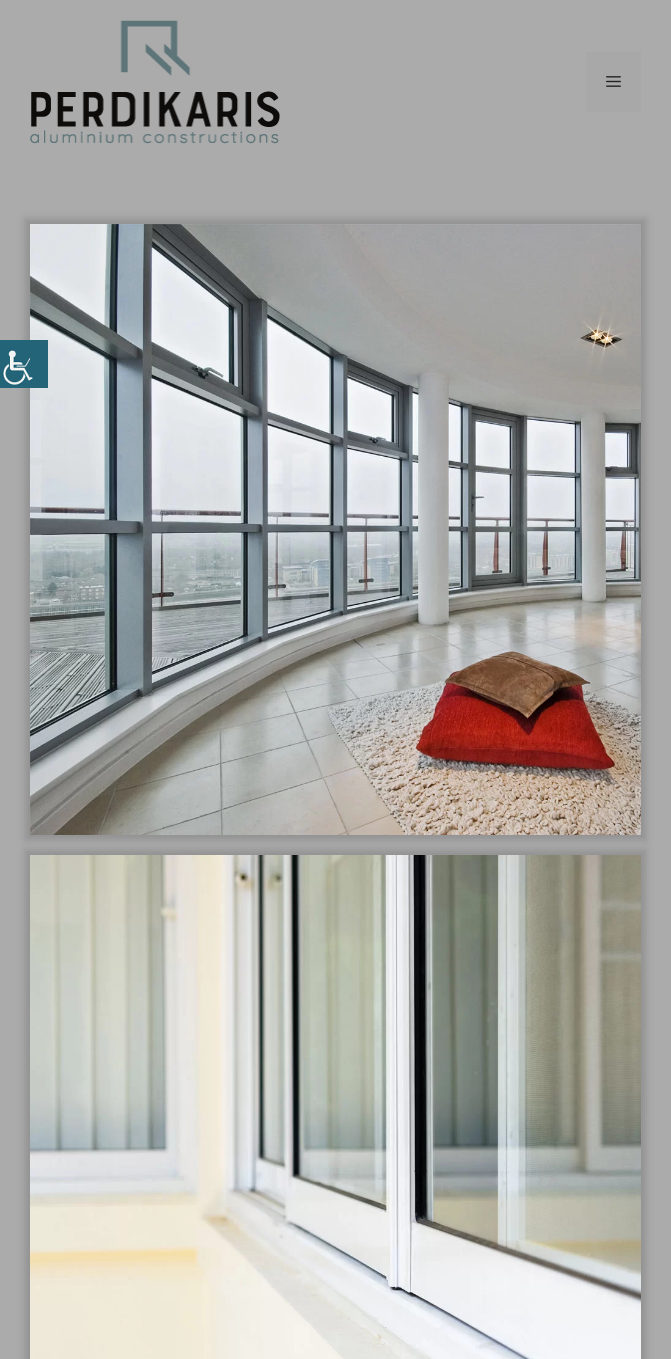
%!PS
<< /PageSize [671 1359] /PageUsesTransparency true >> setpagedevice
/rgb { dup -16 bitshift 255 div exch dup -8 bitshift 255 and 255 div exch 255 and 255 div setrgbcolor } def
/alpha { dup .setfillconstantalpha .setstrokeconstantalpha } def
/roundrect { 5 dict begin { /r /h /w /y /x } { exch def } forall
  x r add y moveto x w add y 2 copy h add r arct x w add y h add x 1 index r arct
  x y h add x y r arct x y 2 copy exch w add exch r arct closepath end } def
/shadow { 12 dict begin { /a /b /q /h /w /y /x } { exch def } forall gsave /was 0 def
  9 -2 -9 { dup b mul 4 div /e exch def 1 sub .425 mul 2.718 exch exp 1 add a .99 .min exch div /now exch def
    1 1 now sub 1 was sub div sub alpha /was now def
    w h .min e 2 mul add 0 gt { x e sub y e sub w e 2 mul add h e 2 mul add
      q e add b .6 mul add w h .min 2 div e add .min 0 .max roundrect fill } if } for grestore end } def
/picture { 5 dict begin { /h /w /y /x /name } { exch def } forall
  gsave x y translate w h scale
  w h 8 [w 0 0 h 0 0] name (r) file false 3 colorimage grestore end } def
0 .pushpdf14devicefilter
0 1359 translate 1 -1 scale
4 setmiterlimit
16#ACABAB rgb
0 0 671 1359 rectfill
(pic1.raw) 30 20 250 124 picture
16#A9A8A8 rgb
586 52 55 60 rectfill
(pic2.raw) 606 76 15 11 picture
16#000000 rgb
25 219 621 621 0 4 0.15 shadow
(pic3.raw) 30 224 611 611 picture
25 850 621 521 0 4 0.15 shadow
(pic4.raw) 30 855 611 504 picture
(pic5.raw) 0 340 48 48 picture
.poppdf14devicefilter showpage
